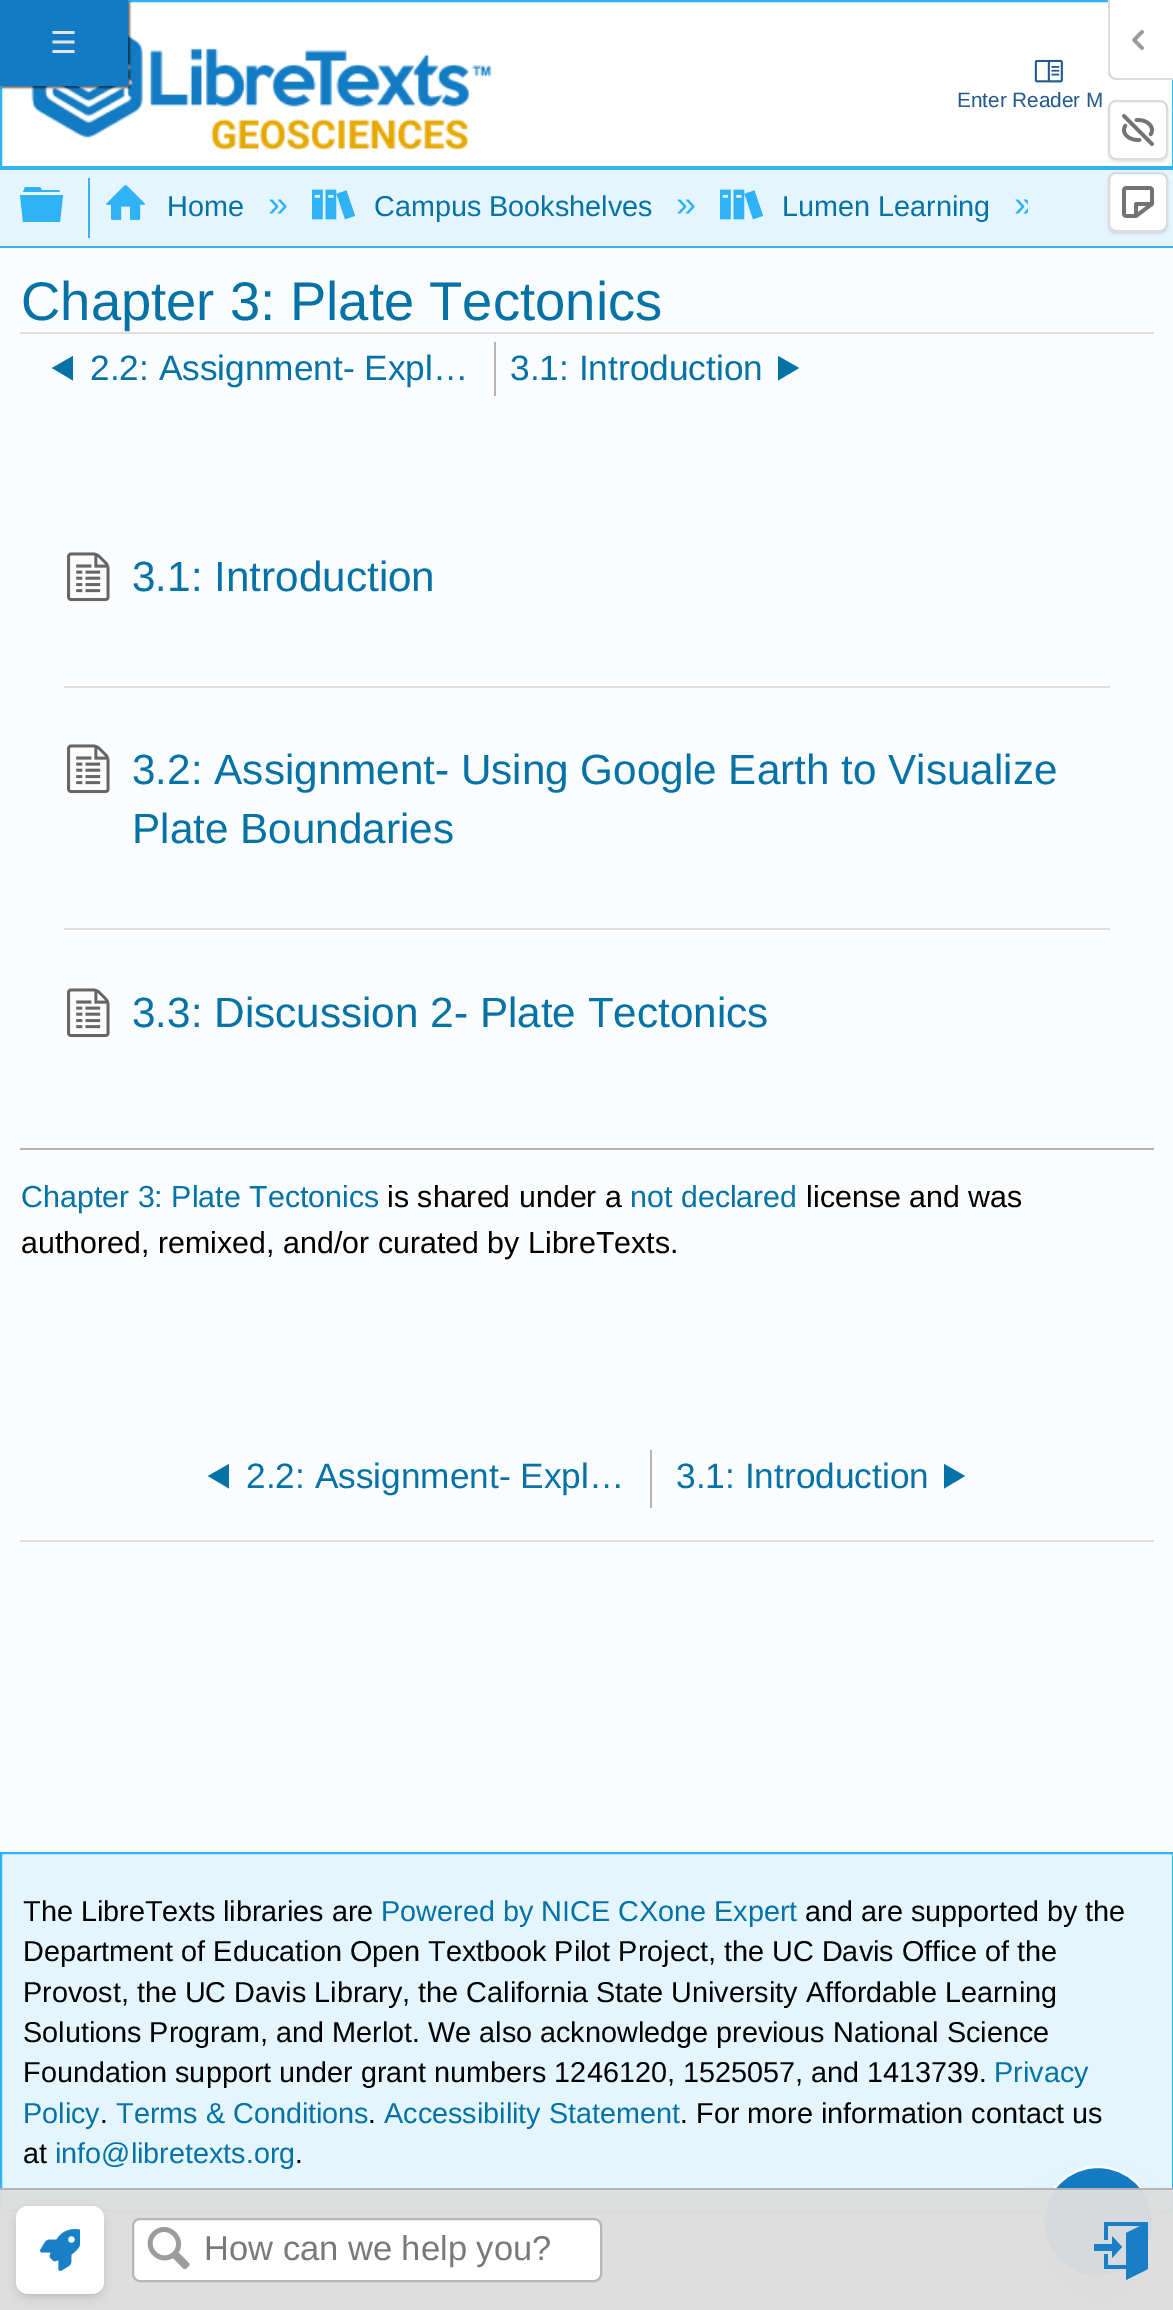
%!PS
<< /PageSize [1173 2310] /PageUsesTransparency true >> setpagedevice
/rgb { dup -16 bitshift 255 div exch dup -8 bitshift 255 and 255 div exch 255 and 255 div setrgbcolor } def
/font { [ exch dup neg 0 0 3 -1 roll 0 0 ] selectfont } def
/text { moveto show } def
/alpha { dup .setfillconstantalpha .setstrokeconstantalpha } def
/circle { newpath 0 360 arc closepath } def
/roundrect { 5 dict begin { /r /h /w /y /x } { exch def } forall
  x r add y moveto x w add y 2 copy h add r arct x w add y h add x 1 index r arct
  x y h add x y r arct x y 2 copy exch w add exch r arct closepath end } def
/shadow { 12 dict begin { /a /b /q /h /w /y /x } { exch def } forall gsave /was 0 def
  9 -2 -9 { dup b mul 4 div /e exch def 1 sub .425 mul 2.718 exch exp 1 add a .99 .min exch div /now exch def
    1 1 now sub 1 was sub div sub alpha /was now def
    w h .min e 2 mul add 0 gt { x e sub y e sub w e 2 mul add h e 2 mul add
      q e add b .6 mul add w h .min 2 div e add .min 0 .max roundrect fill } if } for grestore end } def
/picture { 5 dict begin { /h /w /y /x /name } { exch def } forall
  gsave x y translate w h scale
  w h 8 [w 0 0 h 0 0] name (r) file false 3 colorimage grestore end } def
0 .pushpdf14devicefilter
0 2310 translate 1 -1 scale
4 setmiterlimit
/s1 { /LiberationSans-Regular 20.75 font 16#235A8B rgb } def
/s2 { /LiberationSans-Regular 28.8 font 16#0372A6 rgb } def
/s3 { /LiberationSans-Regular 36 font 16#30B3F6 rgb } def
/s4 { /LiberationSans-Regular 34.5 font 16#797979 rgb } def
/s5 { /LiberationSans-Regular 54.4 font 16#0372A6 rgb } def
/s6 { /LiberationSans-Regular 35.25 font 16#0372A6 rgb } def
/s7 { /LiberationSans-Regular 42.25 font 16#0372A6 rgb } def
/s8 { /LiberationSans-Regular 30.4 font 16#0372A6 rgb } def
/s9 { /LiberationSans-Regular 30.4 font 16#000000 rgb } def
/s10 { /LiberationSans-Regular 28.8 font 16#000000 rgb } def
16#FBFCFE rgb
0 0 1173 2310 rectfill
16#FFFFFF rgb
1 1 moveto 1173 1 lineto 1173 167 lineto 1 167 lineto closepath gsave fill grestore
16#30B3F6 rgb
2 setlinewidth
stroke
(pic4.raw) 31 35 461 115 picture
16#000000 rgb
2 2 128 86 0 1 0.6 shadow
16#127BC4 rgb
0 0 128 86 rectfill
/DejaVuSans-Regular 30 font
16#E5E5E5 rgb
50 53 moveto 1 0 (☰) ashow
16#FFFFFF rgb
1110 0 moveto 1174 0 lineto 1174 78 lineto 1116 78 lineto 1112.5 78 1110 75.5 1110 72 curveto closepath fill
16#DBDBDB rgb
1108 0 moveto 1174 0 lineto 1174 80 lineto 1116 80 lineto 1112 80 1108 76 1108 72 curveto closepath 1110 0 moveto 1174 0 lineto 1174 78 lineto 1116 78 lineto 1113 78 1110 75 1110 72 curveto closepath eofill
(pic1.raw) 1132 30 12 20 picture
16#000000 rgb
1108 102 60 60 8 1 0.1 shadow
16#FFFFFF rgb
1109 101 58 58 7 roundrect gsave fill grestore
16#DBDBDB rgb
stroke
(pic2.raw) 1122 114 32 32 picture
16#E5F5FE rgb
0 170 1173 76 rectfill
16#000000 rgb
1108 174 60 60 8 1 0.1 shadow
16#FFFFFF rgb
1109 173 58 58 7 roundrect gsave fill grestore
16#DBDBDB rgb
stroke
(pic3.raw) 1122 186 32 32 picture
(pic5.raw) 1034 59 29 24 picture
s1
(Enter Reader M) 957 107 text
16#30B3F6 rgb
0 168 1173 2 rectfill
0 246 1173 2 rectfill
20 195 moveto 63 195 lineto 60 222 lineto 23 222 lineto closepath 59 190 moveto 60 192 lineto 23 192 lineto 25 187 lineto 40 187 lineto 42 190 lineto closepath fill
88 178 2 60 rectfill
(pic6.raw) 106 185 39 35 picture
s2
(Home) 167 216 text
s3
(») 268 216 text
(pic7.raw) 312 189 44 31 picture
s2
(Campus Bookshelves) 374 216 text
s3
(») 676 216 text
(pic7.raw) 720 189 44 31 picture
s2
(Lumen Learning) 782 216 text
gsave
90 178 938 60 rectclip
s3
(») 1014 216 text
grestore
16#E5F5FE rgb
1 1853 moveto 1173 1853 lineto 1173 2211 lineto 1 2211 lineto closepath gsave fill grestore
16#30B3F6 rgb
stroke
16#000000 rgb
1054 2194 88 88 44 10 0.1 shadow
1052 2216 92 92 46 25 0.1 shadow
16#127BC4 rgb
1098 2222 55 circle gsave fill grestore
16#FFFFFF rgb
stroke
0.97 alpha
16#DDDDDD rgb
0 2190 1173 120 rectfill
16#B4B4B4 rgb
0 2188 1173 2 rectfill
gsave
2 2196 moveto 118 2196 lineto 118 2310 lineto 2 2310 lineto closepath 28 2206 moveto 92 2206 lineto 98.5 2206 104 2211.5 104 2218 curveto 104 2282 lineto 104 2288.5 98.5 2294 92 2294 curveto 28 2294 lineto 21.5 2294 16 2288.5 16 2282 curveto 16 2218 lineto 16 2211.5 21.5 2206 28 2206 curveto closepath eoclip newpath
1 alpha
16#000000 rgb
18 2212 84 84 10 5 0.19 shadow
grestore
16#FFFFFF rgb
16 2206 88 88 12 roundrect fill
1 alpha
(pic8.raw) 40 2229 40 42 picture
133 2219 468 62 7 roundrect gsave fill grestore
16#B6B6B6 rgb
stroke
(pic9.raw) 147 2227 43 42 picture
s4
(How can we help you?) 204 2260 text
0.97 alpha
16#127BC4 rgb
1112 2251 moveto 1094 2251 lineto 1094 2244 lineto 1112 2244 lineto 1112 2236 lineto 1122 2247 lineto 1112 2258 lineto closepath 1148 2222 moveto 1148 2269 lineto 1126 2280 lineto 1126 2269 lineto 1104 2269 lineto 1104 2254 lineto 1108 2254 lineto 1108 2265 lineto 1126 2265 lineto 1126 2233 lineto 1140 2226 lineto 1108 2226 lineto 1108 2240 lineto 1104 2240 lineto 1104 2222 lineto closepath fill
1 alpha
16#DDDDDD rgb
20 332 1134 2 rectfill
s5
(Chapter 3: Plate Tectonics) 21 320 text
16#B4B4B4 rgb
494 342 2 54 rectfill
16#0372A6 rgb
73 356 moveto 73 380.5 lineto 52 368 lineto closepath fill
s6
(2.2: Assignment- Expl…) 90 380 text
(3.1: Introduction) 510 380 text
778 356 moveto 778 380.5 lineto 799 368 lineto closepath fill
16#DDDDDD rgb
64 686 1046 2 rectfill
(pic10.raw) 67 552 43 50 picture
s7
(3.1: Introduction) 132 591 text
16#DDDDDD rgb
64 928 1046 2 rectfill
(pic10.raw) 67 744 43 50 picture
s7
(3.2: Assignment- Using Google Earth to Visualize) 132 784 text
(Plate Boundaries) 132 843 text
(pic10.raw) 67 988 43 50 picture
(3.3: Discussion 2- Plate Tectonics) 132 1027 text
16#B4B4B4 rgb
20 1148 1134 2 rectfill
s8
(Chapter 3: Plate Tectonics) 21 1207 text
s9
(is shared under a) 387 1207 text
s8
(not declared) 630 1207 text
s9
(license and was) 806 1207 text
(authored, remixed, and/or curated by LibreTexts.) 21 1253 text
16#DDDDDD rgb
20 1540 1134 2 rectfill
16#B4B4B4 rgb
650 1450 2 58 rectfill
16#0372A6 rgb
229 1464 moveto 229 1488.5 lineto 208 1476 lineto closepath fill
s6
(2.2: Assignment- Expl…) 246 1488 text
(3.1: Introduction) 676 1488 text
944 1464 moveto 944 1488.5 lineto 965 1476 lineto closepath fill
s10
(The LibreTexts libraries are) 23 1921 text
s2
(Powered by NICE CXone Expert) 381 1921 text
s10
(and are supported by the) 805 1921 text
(Department of Education Open Textbook Pilot Project, the UC Davis Office of the) 23 1961 text
(Provost, the UC Davis Library, the California State University Affordable Learning) 23 2002 text
(Solutions Program, and Merlot. We also acknowledge previous National Science) 23 2042 text
(Foundation support under grant numbers 1246120, 1525057, and 1413739.) 23 2082 text
s2
(Privacy) 994 2082 text
(Policy) 23 2123 text
s10
(.) 100 2123 text
s2
(Terms & Conditions) 116 2123 text
s10
(.) 368 2123 text
s2
(Accessibility Statement) 384 2123 text
s10
(. For more information contact us) 680 2123 text
(at) 23 2163 text
s2
(info@libretexts.org) 55 2163 text
s10
(.) 295 2163 text
.poppdf14devicefilter showpage
